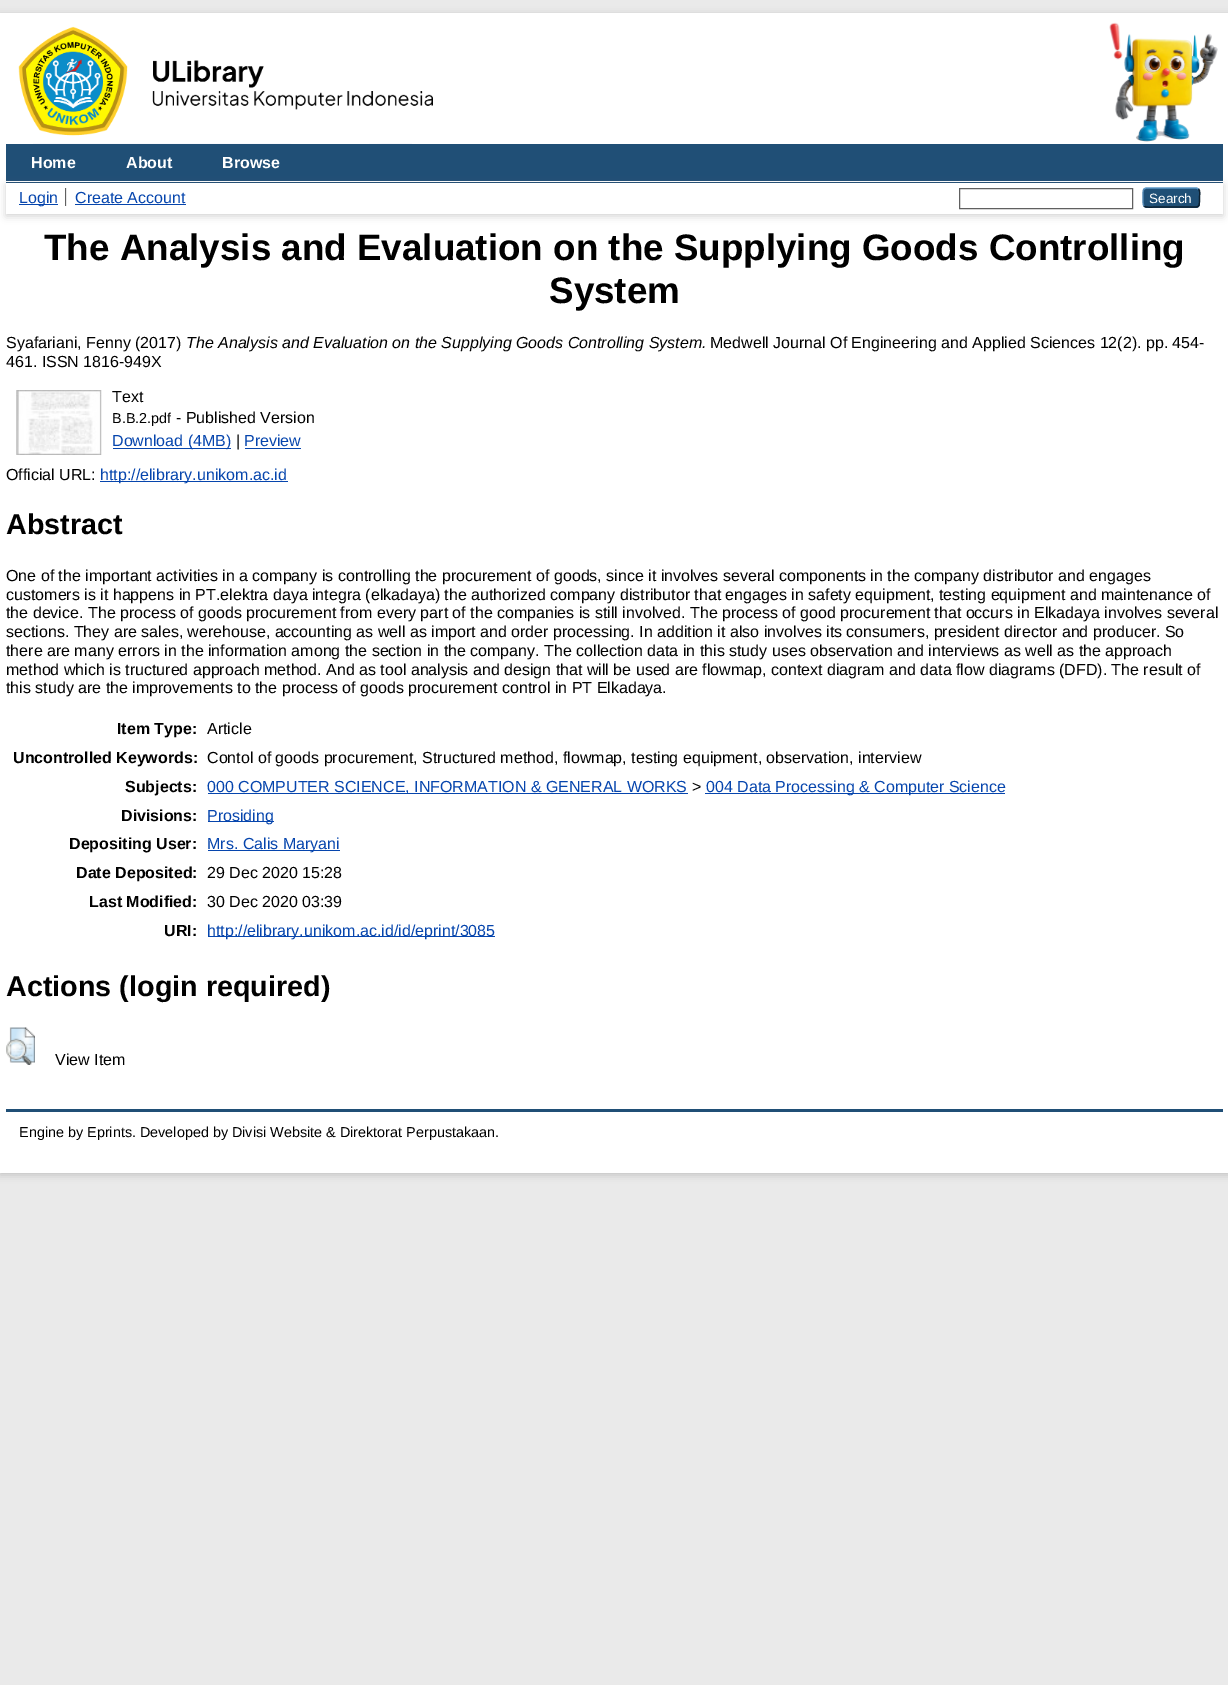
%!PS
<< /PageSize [1228 1685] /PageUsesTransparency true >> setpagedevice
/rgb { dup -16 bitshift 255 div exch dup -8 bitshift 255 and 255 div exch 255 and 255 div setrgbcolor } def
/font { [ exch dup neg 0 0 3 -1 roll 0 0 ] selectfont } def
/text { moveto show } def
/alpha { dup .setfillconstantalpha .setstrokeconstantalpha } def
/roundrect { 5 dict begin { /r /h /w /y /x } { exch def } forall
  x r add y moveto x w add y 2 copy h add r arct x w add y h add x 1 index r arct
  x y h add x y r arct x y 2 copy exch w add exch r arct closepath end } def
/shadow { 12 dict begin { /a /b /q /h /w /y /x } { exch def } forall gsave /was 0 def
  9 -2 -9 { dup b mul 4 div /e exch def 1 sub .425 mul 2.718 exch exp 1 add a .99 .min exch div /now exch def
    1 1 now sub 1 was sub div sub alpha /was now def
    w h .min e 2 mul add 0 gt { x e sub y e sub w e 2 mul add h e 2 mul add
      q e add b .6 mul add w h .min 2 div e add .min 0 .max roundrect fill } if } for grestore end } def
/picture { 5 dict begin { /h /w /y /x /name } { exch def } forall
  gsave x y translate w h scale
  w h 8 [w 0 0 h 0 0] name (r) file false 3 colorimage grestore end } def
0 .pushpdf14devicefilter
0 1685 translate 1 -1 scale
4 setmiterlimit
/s1 { /LiberationSans-Bold 16 font 16#FFFFFF rgb } def
/s2 { /LiberationSans-Regular 16 font 16#0645AD rgb } def
/s3 { /LiberationSans-Regular 13.5 font 16#FFFFFF rgb } def
/s4 { /LiberationSans-Bold 36.8 font 16#000000 rgb } def
/s5 { /LiberationSans-Regular 16 font 16#000000 rgb } def
/s6 { /LiberationSans-Italic 16 font 16#000000 rgb } def
/s7 { /LiberationSans-Regular 14.4 font 16#000000 rgb } def
/s8 { /LiberationSans-Bold 28.75 font 16#000000 rgb } def
/s9 { /LiberationSans-Bold 16 font 16#000000 rgb } def
16#EAEAEA rgb
0 0 1228 1685 rectfill
16#646464 rgb
0 15 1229 1160 0 4 0.3 shadow
16#FFFFFF rgb
0 13 1228 1160 rectfill
(pic1.raw) 18 26 415 110 picture
(pic2.raw) 1109 22 109 120 picture
(pic3.raw) 33 143 379 1 picture
16#204F76 rgb
6 144 1217 39 rectfill
16#FFFFFF rgb
6 181 1217 1 rectfill
s1
(Home) 31 168 text
(About) 126 168 text
(Browse) 222 168 text
16#646464 rgb
6 185 1217 31 0 4 0.3 shadow
16#FFFFFF rgb
6 183 1217 31 rectfill
16#606060 rgb
65 188 1 18 rectfill
16#0645AD rgb
19 204 39 1 rectfill
s2
(Login) 19 203 text
16#E8E8E8 rgb
66 188 1 18 rectfill
s2
(Create Account) 75 203 text
75 204 111 1 rectfill
16#606060 rgb
959.5 188.5 173 20 rectstroke
16#1F4F76 rgb
1143 188 57 20 4 roundrect fill
16#5B97C7 rgb
1.2 setlinewidth
1144 189 moveto 1146 188 lineto 1196.5 188 lineto 1198.5 189 lineto stroke
16#0D2131 rgb
1198.5 189 moveto 1200.5 191 1199.5 195 1199.5 197.5 curveto 1199.5 208.5 1199.5 207 1188 207 curveto 1154.5 207 lineto 1154 207 1146.5 208 1144 206 curveto stroke
16#5287B3 rgb
1144 206 moveto 1142.5 204 1143 199.5 1143 197.5 curveto 1143 195.5 1142.5 191 1144 189 curveto stroke
s3
(Search) 1149 203 text
s4
(The Analysis and Evaluation on the Supplying Goods Controlling) 44 260 text
(System) 549 303 text
s5
(Syafariani, Fenny \(2017\)) 6 348 text
s6
(The Analysis and Evaluation on the Supplying Goods Controlling System.) 186 348 text
s5
(Medwell Journal Of Engineering and Applied Sciences 12\(2\). pp. 454-) 710 348 text
(461. ISSN 1816-949X) 6 367 text
(pic4.raw) 16 390 86 65 picture
(Text) 112 402 text
s7
(B.B.2.pdf) 112 423 text
s5
(- Published Version) 176 423 text
16#0645AD rgb
113 448 118 1 rectfill
(Download \(4MB\)) 112 446 text
s5
(|) 236 446 text
s2
(Preview) 244 446 text
245 448 56 1 rectfill
s5
(Official URL:) 6 480 text
16#0645AD rgb
100 481 188 1 rectfill
(http://elibrary.unikom.ac.id) 100 480 text
s8
(Abstract) 6 534 text
s5
(One of the important activities in a company is controlling the procurement of goods, since it involves several components in the company distributor and engages) 6 581 text
(customers is it happens in PT.elektra daya integra \(elkadaya\) the authorized company distributor that engages in safety equipment, testing equipment and maintenance of) 6 600 text
(the device. The process of goods procurement from every part of the companies is still involved. The process of good procurement that occurs in Elkadaya involves several) 6 618 text
(sections. They are sales, werehouse, accounting as well as import and order processing. In addition it also involves its consumers, president director and producer. So) 6 637 text
(there are many errors in the information among the section in the company. The collection data in this study uses observation and interviews as well as the approach) 6 656 text
(method which is tructured approach method. And as tool analysis and design that will be used are flowmap, context diagram and data flow diagrams \(DFD\). The result of) 6 675 text
(this study are the improvements to the process of goods procurement control in PT Elkadaya.) 6 693 text
s9
(Item Type:) 117 734 text
s5
(Article) 207 734 text
s9
(Uncontrolled Keywords:) 13 763 text
s5
(Contol of goods procurement, Structured method, flowmap, testing equipment, observation, interview) 207 763 text
s9
(Subjects:) 125 792 text
16#0645AD rgb
208 793 480 1 rectfill
s2
(000 COMPUTER SCIENCE, INFORMATION & GENERAL WORKS) 207 792 text
s5
(>) 692 792 text
16#0645AD rgb
705 793 300 1 rectfill
(004 Data Processing & Computer Science) 706 792 text
s9
(Divisions:) 121 821 text
16#0645AD rgb
208 821 66 1 rectfill
s2
(Prosiding) 207 821 text
s9
(Depositing User:) 69 849 text
16#0645AD rgb
208 850 132 1 rectfill
s2
(Mrs. Calis Maryani) 207 849 text
s9
(Date Deposited:) 76 878 text
s5
(29 Dec 2020 15:28) 207 878 text
s9
(Last Modified:) 89 907 text
s5
(30 Dec 2020 03:39) 207 907 text
s9
(URI:) 164 936 text
16#0645AD rgb
208 936 287 1 rectfill
s2
(http://elibrary.unikom.ac.id/id/eprint/3085) 207 936 text
s8
(Actions \(login required\)) 6 996 text
(pic5.raw) 6 1027 29 38 picture
s5
(View Item) 55 1065 text
16#204F76 rgb
6 1109 1217 3 rectfill
s7
(Engine by Eprints. Developed by Divisi Website & Direktorat Perpustakaan.) 19 1137 text
.poppdf14devicefilter showpage
